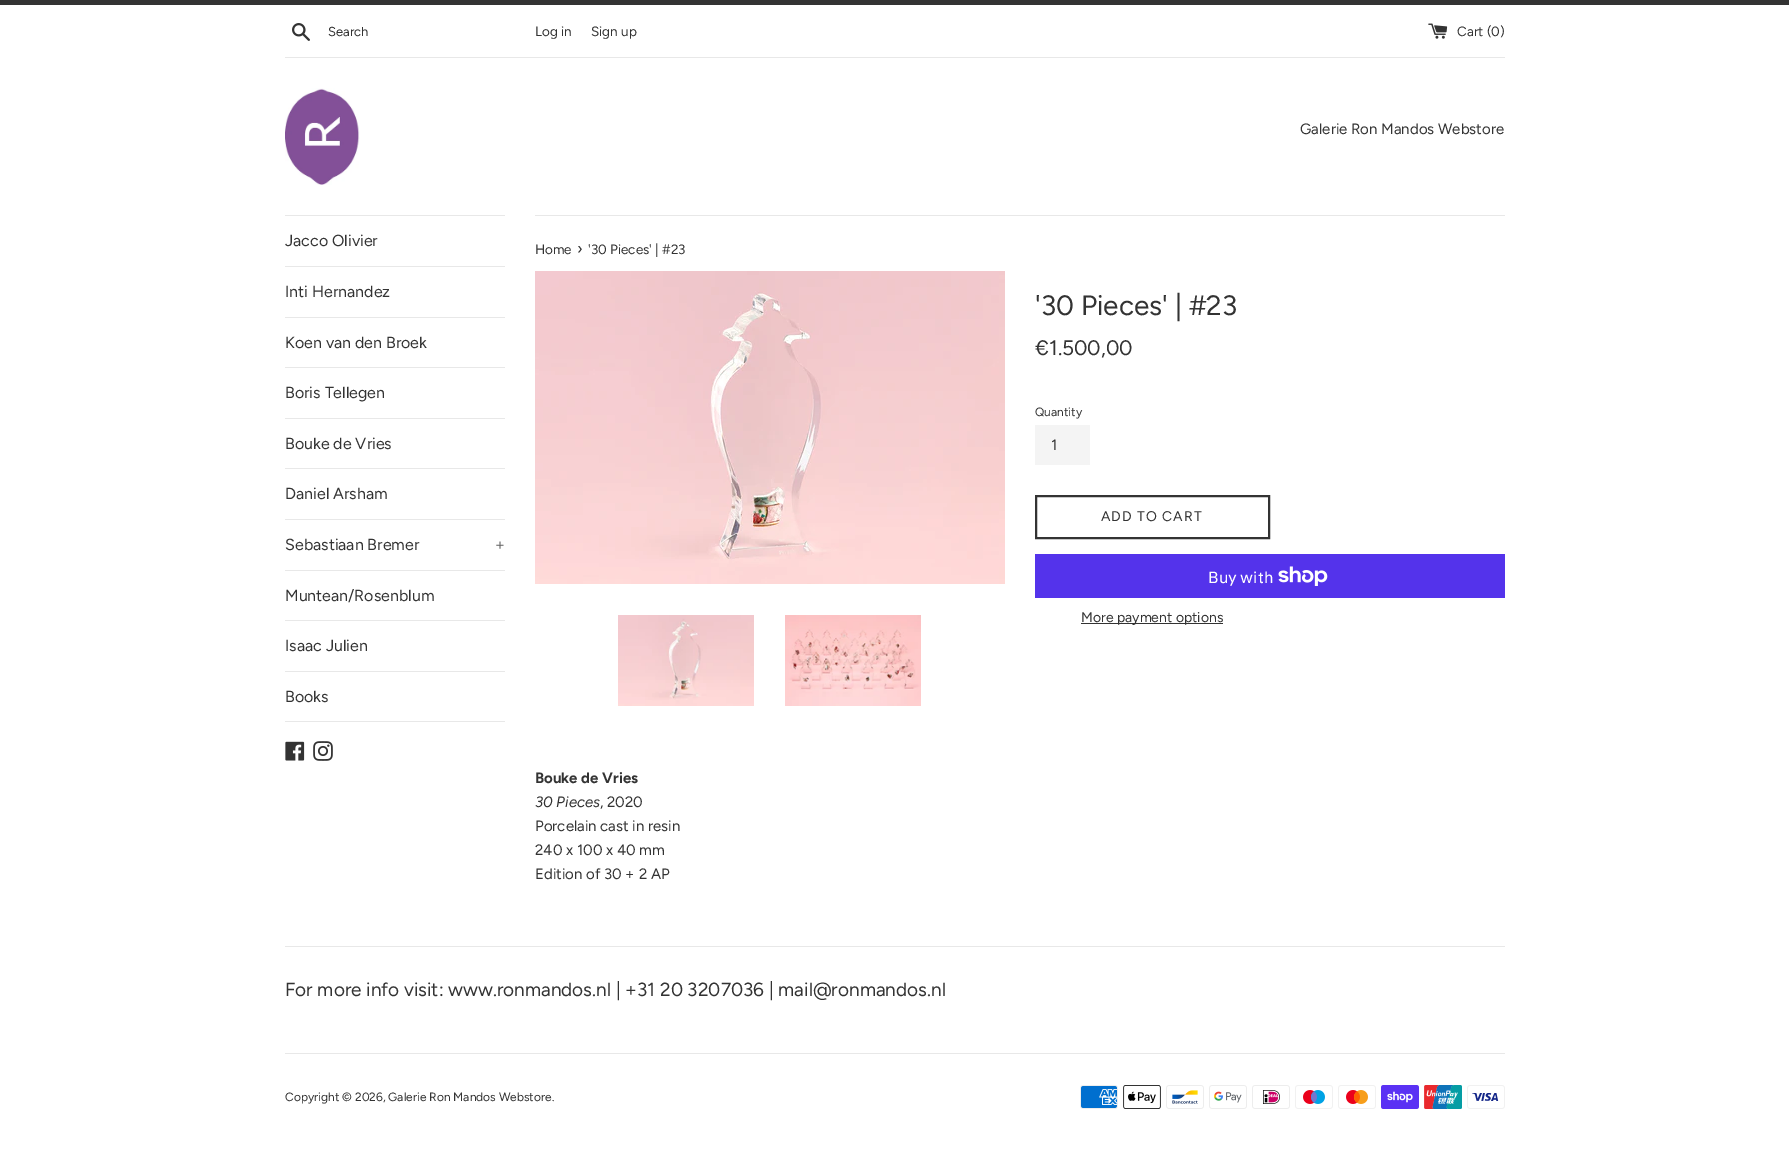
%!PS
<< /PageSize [1789 1173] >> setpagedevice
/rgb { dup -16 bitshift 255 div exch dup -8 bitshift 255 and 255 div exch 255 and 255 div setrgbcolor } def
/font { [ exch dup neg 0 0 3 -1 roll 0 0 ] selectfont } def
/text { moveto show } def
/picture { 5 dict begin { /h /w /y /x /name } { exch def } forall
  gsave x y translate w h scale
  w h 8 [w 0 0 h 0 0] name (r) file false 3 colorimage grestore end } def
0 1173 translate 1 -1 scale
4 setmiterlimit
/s1 { /Figtree-Regular 13 font 16#333333 rgb } def
/s2 { /Figtree-Regular 13.5 font 16#333333 rgb } def
/s3 { /Figtree-Regular 15 font 16#333333 rgb } def
/s4 { /Figtree-Regular 16 font 16#333333 rgb } def
/s5 { /Figtree-Regular 16 font 16#5C5C5C rgb } def
/s6 { /Figtree-Regular 28 font 16#333333 rgb } def
/s7 { /Figtree-Regular 21 font 16#333333 rgb } def
/s8 { /Figtree-Regular 12 font 16#333333 rgb } def
/s9 { /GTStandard-Regular 16 font 16#FFFFFF rgb } def
/s10 { /Figtree-Regular 14 font 16#333333 rgb } def
/s11 { /Figtree-Bold 15 font 16#333333 rgb } def
/s12 { /Figtree-Italic 15 font 16#333333 rgb } def
/s13 { /Figtree-Regular 19 font 16#333333 rgb } def
16#FFFFFF rgb
0 0 1789 1173 rectfill
16#333333 rgb
0 0 1789 5 rectfill
(pic1.raw) 292 23 18 18 picture
s1
(Search) 328 36 text
s2
(Log in) 535 36 text
(Sign up) 591 36 text
(pic2.raw) 1428 23 20 16 picture
(Cart \(0\)) 1457 36 text
16#E8E8E8 rgb
285 57 1220 1 rectfill
(pic3.raw) 285 88 75 97 picture
s3
(Galerie Ron Mandos Webstore) 1300 134 text
16#E8E8E8 rgb
285 215 220 1 rectfill
285 266 220 1 rectfill
s4
(Jacco Olivier) 285 246 text
16#E8E8E8 rgb
285 317 220 1 rectfill
s4
(Inti Hernandez) 285 297 text
16#E8E8E8 rgb
285 367 220 1 rectfill
s4
(Koen van den Broek) 285 348 text
16#E8E8E8 rgb
285 418 220 1 rectfill
s4
(Boris Tellegen) 285 398 text
16#E8E8E8 rgb
285 468 220 1 rectfill
s4
(Bouke de Vries) 285 449 text
16#E8E8E8 rgb
285 519 220 1 rectfill
s4
(Daniel Arsham) 285 499 text
16#E8E8E8 rgb
285 570 220 1 rectfill
s4
(Sebastiaan Bremer) 285 550 text
s5
(+) 495 550 text
16#E8E8E8 rgb
285 620 220 1 rectfill
s4
(Muntean/Rosenblum) 285 601 text
16#E8E8E8 rgb
285 671 220 1 rectfill
s4
(Isaac Julien) 285 651 text
16#E8E8E8 rgb
285 721 220 1 rectfill
s4
(Books) 285 702 text
(pic4.raw) 285 741 20 20 picture
(pic5.raw) 313 741 20 20 picture
16#E8E8E8 rgb
535 215 970 1 rectfill
s2
(Home) 535 254 text
s4
(›) 577 254 text
s2
('30 Pieces' | #23) 588 254 text
(pic6.raw) 535 271 470 313 picture
(pic7.raw) 618 615 136 91 picture
(pic8.raw) 785 615 136 91 picture
s6
('30 Pieces' | #23) 1035 315 text
s7
(€1.500,00) 1035 355 text
s8
(Quantity) 1035 416 text
16#F4F4F4 rgb
1035 425 55 40 rectfill
s3
(1) 1051 450 text
2 setlinewidth
1036 496 233 42 rectstroke
/Figtree-Regular 14 font
1101 521 moveto 1 0 (ADD TO CART) ashow
16#5433EB rgb
1035 554 470 44 rectfill
s9
(Buy with) 1208 583 text
(pic9.raw) 1278 566 50 20 picture
16#333333 rgb
1081 623 142 1 rectfill
s10
(More payment options) 1081 622 text
s11
(Bouke de Vries) 535 783 text
s12
(30 Pieces) 535 807 text
s3
(, 2020) 600 807 text
(Porcelain cast in resin) 535 831 text
(240 x 100 x 40 mm) 535 855 text
(Edition of 30 + 2 AP) 535 879 text
16#E8E8E8 rgb
285 946 1220 1 rectfill
s13
(For more info visit: www.ronmandos.nl | +31 20 3207036 | mail@ronmandos.nl) 285 996 text
16#E8E8E8 rgb
285 1053 1220 1 rectfill
s8
(Copyright © 2026, Galerie Ron Mandos Webstore.) 285 1101 text
(pic10.raw) 1080 1085 38 24 picture
(pic11.raw) 1123 1085 38 24 picture
(pic12.raw) 1166 1085 38 24 picture
(pic13.raw) 1209 1085 38 24 picture
(pic14.raw) 1252 1085 38 24 picture
(pic15.raw) 1295 1085 38 24 picture
(pic16.raw) 1338 1085 38 24 picture
(pic17.raw) 1381 1085 38 24 picture
(pic18.raw) 1424 1085 38 24 picture
(pic19.raw) 1467 1085 38 24 picture
showpage
